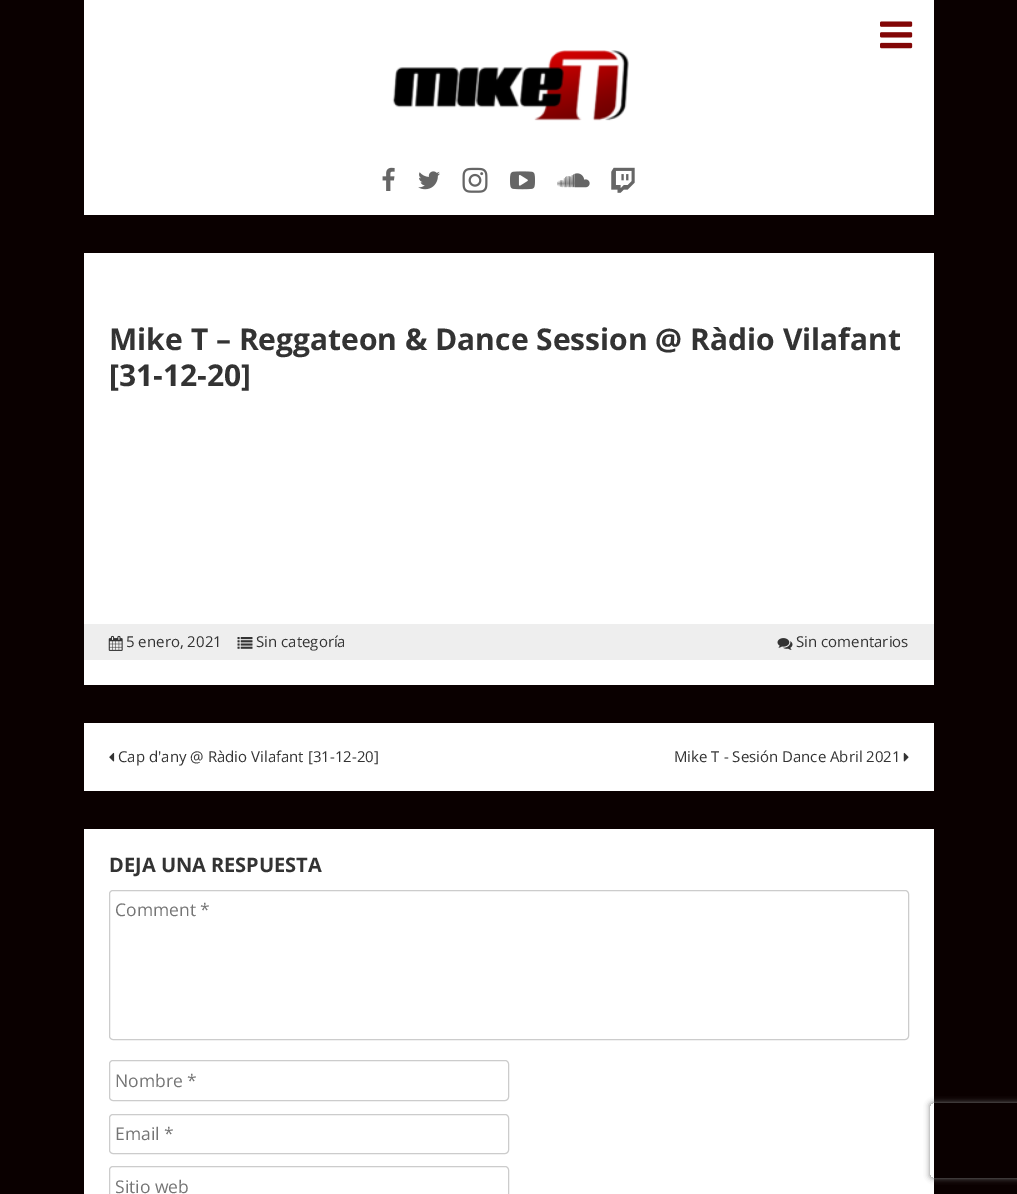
%!PS
<< /PageSize [1017 1194] /PageUsesTransparency true >> setpagedevice
/rgb { dup -16 bitshift 255 div exch dup -8 bitshift 255 and 255 div exch 255 and 255 div setrgbcolor } def
/font { [ exch dup neg 0 0 3 -1 roll 0 0 ] selectfont } def
/text { moveto show } def
/alpha { dup .setfillconstantalpha .setstrokeconstantalpha } def
/roundrect { 5 dict begin { /r /h /w /y /x } { exch def } forall
  x r add y moveto x w add y 2 copy h add r arct x w add y h add x 1 index r arct
  x y h add x y r arct x y 2 copy exch w add exch r arct closepath end } def
/shadow { 12 dict begin { /a /b /q /h /w /y /x } { exch def } forall gsave /was 0 def
  9 -2 -9 { dup b mul 4 div /e exch def 1 sub .425 mul 2.718 exch exp 1 add a .99 .min exch div /now exch def
    1 1 now sub 1 was sub div sub alpha /was now def
    w h .min e 2 mul add 0 gt { x e sub y e sub w e 2 mul add h e 2 mul add
      q e add b .6 mul add w h .min 2 div e add .min 0 .max roundrect fill } if } for grestore end } def
/picture { 5 dict begin { /h /w /y /x /name } { exch def } forall
  gsave x y translate w h scale
  w h 8 [w 0 0 h 0 0] name (r) file false 3 colorimage grestore end } def
0 .pushpdf14devicefilter
0 1194 translate 1 -1 scale
4 setmiterlimit
/s1 { /OpenSans-Bold 30 font 16#333333 rgb } def
/s2 { /OpenSans-Regular 15 font 16#333333 rgb } def
/s3 { /OpenSans-Bold 20 font 16#333333 rgb } def
/s4 { /OpenSans-Regular 17.5 font 16#757575 rgb } def
16#0A0000 rgb
0 0 1017 1194 rectfill
16#FFFFFF rgb
84 0 850 215 rectfill
(pic1.raw) 880 21 33 28 picture
(pic2.raw) 382 167 13 24 picture
(pic3.raw) 418 171 22 19 picture
(pic4.raw) 462 167 26 26 picture
(pic5.raw) 510 171 25 19 picture
(pic6.raw) 557 173 33 15 picture
(pic7.raw) 611 167 24 26 picture
(pic8.raw) 392 50 237 71 picture
84 253 850 432 rectfill
s1
(Mike T – Reggateon & Dance Session @ Ràdio Vilafant) 109 350 text
([31-12-20]) 109 386 text
16#EEEEEE rgb
84 624 850 36 rectfill
(pic9.raw) 108 635 15 16 picture
s2
(5 enero, 2021) 126 647 text
(pic10.raw) 237 637 16 12 picture
(Sin categoría) 256 647 text
(pic11.raw) 777 638 16 12 picture
(Sin comentarios) 796 647 text
16#FFFFFF rgb
84 723 850 68 rectfill
(pic12.raw) 109 752 6 10 picture
s2
(Cap d'any @ Ràdio Vilafant [31-12-20]) 118 762 text
(Mike T - Sesión Dance Abril 2021) 674 762 text
(pic13.raw) 903 752 6 10 picture
16#FFFFFF rgb
84 829 850 365 rectfill
s3
(DEJA UNA RESPUESTA) 109 872 text
16#CCCCCC rgb
109.5 890.5 799 149 3.5 roundrect stroke
s4
(Comment *) 115 916 text
16#CCCCCC rgb
109.5 1060.5 399 40 3.5 roundrect stroke
s4
(Nombre *) 115 1087 text
16#CCCCCC rgb
109.5 1114.5 399 39 3.5 roundrect stroke
s4
(Email *) 115 1140 text
16#CCCCCC rgb
109.5 1166.5 399 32 3.5 roundrect stroke
s4
(Sitio web) 115 1193 text
gsave
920 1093 moveto 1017 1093 lineto 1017 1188 lineto 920 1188 lineto closepath 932.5 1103 moveto 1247.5 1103 lineto 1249 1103 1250 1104 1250 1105.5 curveto 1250 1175.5 lineto 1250 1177 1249 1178 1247.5 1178 curveto 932.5 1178 lineto 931 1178 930 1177 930 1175.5 curveto 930 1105.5 lineto 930 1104 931 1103 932.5 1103 curveto closepath eoclip newpath
16#808080 rgb
930 1103 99 75 2.5 3 1 shadow
grestore
.poppdf14devicefilter showpage
